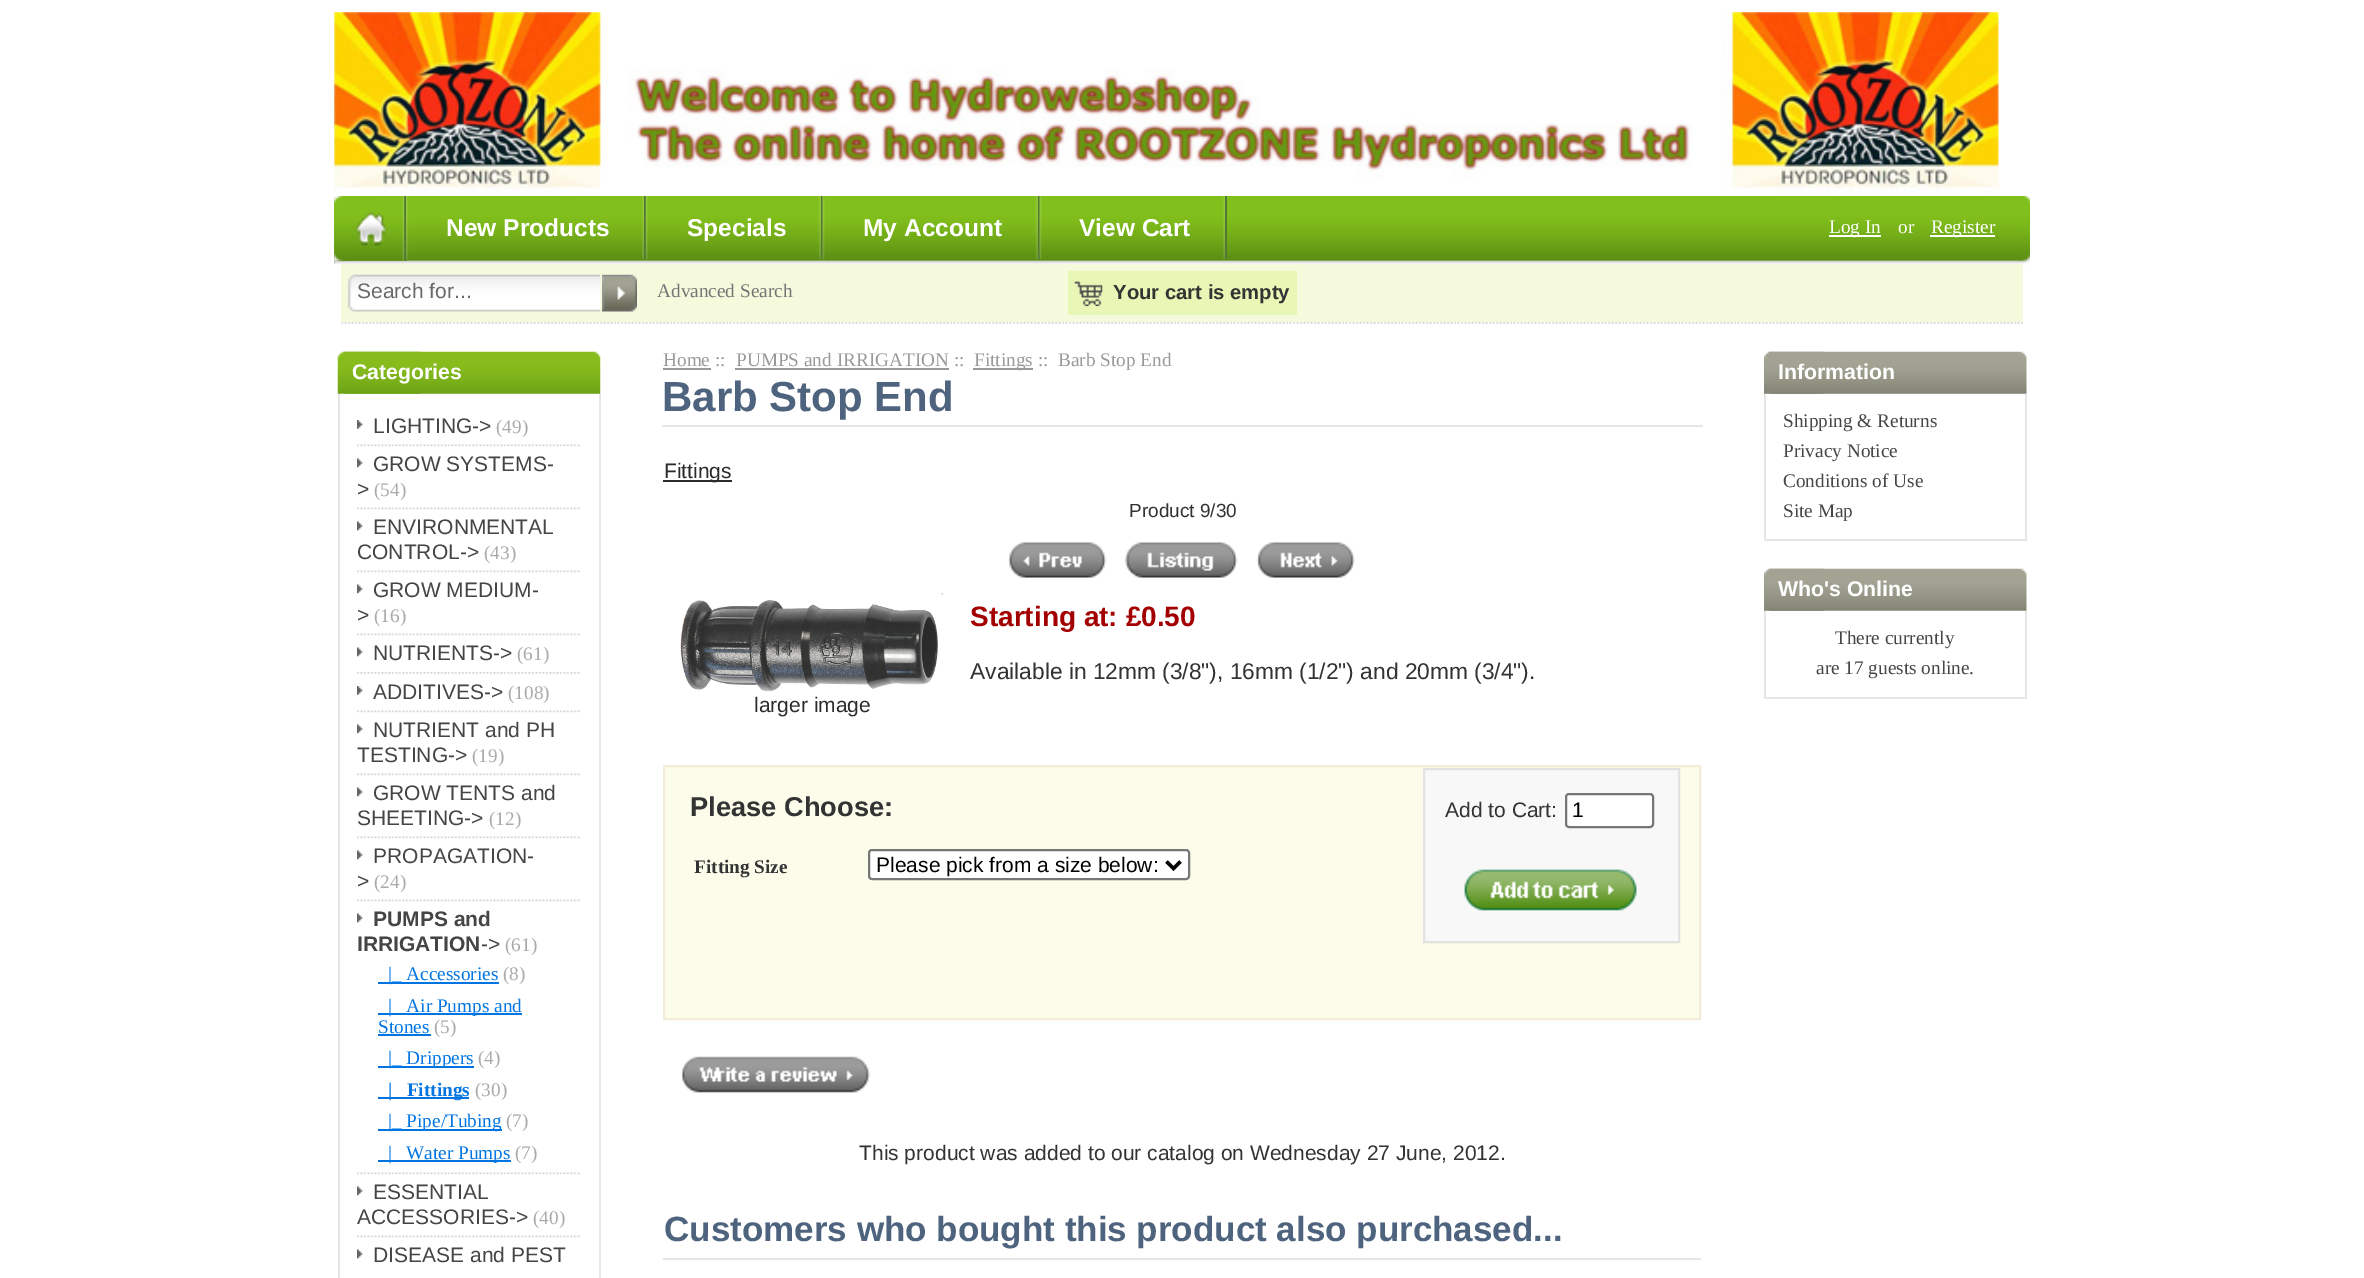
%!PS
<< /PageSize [2364 1278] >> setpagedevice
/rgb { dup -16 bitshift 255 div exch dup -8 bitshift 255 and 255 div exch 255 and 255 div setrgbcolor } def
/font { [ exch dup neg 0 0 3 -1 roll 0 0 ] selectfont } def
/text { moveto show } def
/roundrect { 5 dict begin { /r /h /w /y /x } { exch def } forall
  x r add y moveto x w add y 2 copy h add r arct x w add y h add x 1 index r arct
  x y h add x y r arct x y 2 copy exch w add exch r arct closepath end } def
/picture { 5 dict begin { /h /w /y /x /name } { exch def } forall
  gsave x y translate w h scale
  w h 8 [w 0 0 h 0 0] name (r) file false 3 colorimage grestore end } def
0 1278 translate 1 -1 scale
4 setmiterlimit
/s1 { /LiberationSans-Bold 24.5 font 16#FFFFFF rgb } def
/s2 { /LiberationSerif-Regular 19.25 font 16#FFFFFF rgb } def
/s3 { /LiberationSans-Regular 21 font 16#696969 rgb } def
/s4 { /LiberationSerif-Regular 19.25 font 16#757575 rgb } def
/s5 { /LiberationSans-Bold 20.25 font 16#333333 rgb } def
/s6 { /LiberationSans-Bold 21.25 font 16#FFFFFF rgb } def
/s7 { /LiberationSans-Regular 21 font 16#454545 rgb } def
/s8 { /LiberationSerif-Regular 19.25 font 16#AAAAAA rgb } def
/s9 { /LiberationSans-Bold 21 font 16#454545 rgb } def
/s10 { /LiberationSerif-Regular 19.25 font 16#0075E2 rgb } def
/s11 { /LiberationSerif-Bold 19.25 font 16#0075E2 rgb } def
/s12 { /LiberationSerif-Regular 19.25 font 16#999999 rgb } def
/s13 { /LiberationSans-Bold 42 font 16#4E637E rgb } def
/s14 { /LiberationSans-Regular 21 font 16#2B2B2B rgb } def
/s15 { /LiberationSans-Regular 19 font 16#333333 rgb } def
/s16 { /LiberationSans-Bold 28 font 16#A30101 rgb } def
/s17 { /LiberationSans-Regular 22.75 font 16#333333 rgb } def
/s18 { /LiberationSans-Bold 27.25 font 16#333333 rgb } def
/s19 { /LiberationSerif-Bold 19.25 font 16#333333 rgb } def
/s20 { /LiberationSans-Regular 21 font 16#000000 rgb } def
/s21 { /LiberationSans-Regular 21 font 16#333333 rgb } def
/s22 { /LiberationSans-Bold 35 font 16#4E637E rgb } def
/s23 { /LiberationSerif-Regular 19.25 font 16#454545 rgb } def
16#FFFFFF rgb
0 0 2364 1278 rectfill
(pic1.raw) 334 12 1665 182 picture
(pic2.raw) 334 196 1696 69 picture
(pic3.raw) 334 196 20 65 picture
16#527833 rgb
404 196 2 65 rectfill
(pic4.raw) 334 196 71 65 picture
(pic5.raw) 406 196 3 63 picture
644 196 2 63 rectfill
(pic6.raw) 642 196 2 63 picture
s1
(New Products) 446 236 text
(pic7.raw) 645 196 3 63 picture
16#527833 rgb
821 196 2 63 rectfill
(pic8.raw) 818 196 3 63 picture
s1
(Specials) 687 236 text
(pic9.raw) 822 196 3 63 picture
16#527833 rgb
1038 196 2 63 rectfill
(pic8.raw) 1035 196 3 63 picture
s1
(My Account) 863 236 text
(pic9.raw) 1039 196 3 63 picture
16#527833 rgb
1225 196 2 63 rectfill
(pic6.raw) 1223 196 2 63 picture
s1
(View Cart) 1079 236 text
16#F5FADD rgb
341 264 1682 58 rectfill
(pic10.raw) 2019 196 11 69 picture
16#FFFFFF rgb
1829 235 52 2 rectfill
s2
(Log In) 1829 233 text
(or) 1898 233 text
1930 235 65 2 rectfill
(Register) 1931 233 text
(pic11.raw) 348 274 253 38 picture
s3
(Search for...) 357 298 text
(pic12.raw) 602 274 35 38 picture
s4
(Advanced Search) 657 297 text
16#E8F6B6 rgb
1068 271 229 44 rectfill
(pic13.raw) 1074 281 29 26 picture
s5
(Your cart is empty) 1113 299 text
(pic14.raw) 341 322 1682 2 picture
(pic15.raw) 337 351 83 43 picture
(pic16.raw) 344 351 257 43 picture
s6
(Categories) 352 379 text
16#E6E6E6 rgb
599 394 2 884 rectfill
338 394 2 884 rectfill
(pic17.raw) 357 420 6 9 picture
s7
(LIGHTING->) 373 433 text
s8
(\(49\)) 496 433 text
(pic18.raw) 357 444 224 3 picture
(pic19.raw) 357 458 6 10 picture
s7
(GROW SYSTEMS-) 373 471 text
(>) 357 496 text
s8
(\(54\)) 374 496 text
(pic18.raw) 357 507 224 3 picture
(pic19.raw) 357 521 6 10 picture
s7
(ENVIRONMENTAL) 373 534 text
(CONTROL->) 357 559 text
s8
(\(43\)) 484 559 text
(pic18.raw) 357 570 224 3 picture
(pic19.raw) 357 584 6 10 picture
s7
(GROW MEDIUM-) 373 597 text
(>) 357 622 text
s8
(\(16\)) 374 622 text
(pic18.raw) 357 633 224 3 picture
(pic19.raw) 357 647 6 10 picture
s7
(NUTRIENTS->) 373 660 text
s8
(\(61\)) 517 660 text
(pic20.raw) 357 672 224 2 picture
(pic17.raw) 357 686 6 9 picture
s7
(ADDITIVES->) 373 699 text
s8
(\(108\)) 508 699 text
(pic18.raw) 357 710 224 3 picture
(pic19.raw) 357 724 6 10 picture
s7
(NUTRIENT and PH) 373 737 text
(TESTING->) 357 762 text
s8
(\(19\)) 472 762 text
(pic18.raw) 357 773 224 3 picture
(pic19.raw) 357 787 6 10 picture
s7
(GROW TENTS and) 373 800 text
(SHEETING->) 357 825 text
s8
(\(12\)) 489 825 text
(pic18.raw) 357 836 224 3 picture
(pic19.raw) 357 850 6 10 picture
s7
(PROPAGATION-) 373 863 text
(>) 357 888 text
s8
(\(24\)) 374 888 text
(pic18.raw) 357 899 224 3 picture
(pic19.raw) 357 913 6 10 picture
s9
(PUMPS and) 373 926 text
(IRRIGATION) 357 951 text
s7
(->) 481 951 text
s8
(\(61\)) 505 951 text
16#0075E2 rgb
378 982 121 2 rectfill
(|_ Accessories) 388 980 text
s8
(\(8\)) 503 980 text
16#0075E2 rgb
378 1013 144 2 rectfill
(|_ Air Pumps and) 388 1012 text
(Stones) 378 1033 text
378 1034 53 2 rectfill
s8
(\(5\)) 434 1033 text
16#0075E2 rgb
378 1066 96 2 rectfill
(|_ Drippers) 388 1064 text
s8
(\(4\)) 478 1064 text
16#0075E2 rgb
378 1097 91 2 rectfill
s11
(|_ Fittings) 388 1096 text
s8
(\(30\)) 475 1096 text
16#0075E2 rgb
378 1129 124 2 rectfill
(|_ Pipe/Tubing) 388 1127 text
s8
(\(7\)) 506 1127 text
16#0075E2 rgb
378 1160 133 2 rectfill
(|_ Water Pumps) 388 1159 text
s8
(\(7\)) 515 1159 text
(pic18.raw) 357 1172 224 3 picture
(pic19.raw) 357 1186 6 10 picture
s7
(ESSENTIAL) 373 1199 text
(ACCESSORIES->) 357 1224 text
s8
(\(40\)) 533 1224 text
(pic18.raw) 357 1235 224 3 picture
(pic19.raw) 357 1249 6 10 picture
s7
(DISEASE and PEST) 373 1262 text
s12
(Home ::) 663 366 text
663 368 48 2 rectfill
(PUMPS and IRRIGATION ::) 736 366 text
735 368 214 2 rectfill
973 368 60 2 rectfill
(Fittings ::  Barb Stop End) 974 366 text
16#E6E6E6 rgb
662 425 1041 2 rectfill
s13
(Barb Stop End) 662 411 text
16#2B2B2B rgb
663 480 69 2 rectfill
s14
(Fittings) 664 478 text
s15
(Product 9/30) 1129 517 text
(pic21.raw) 1008 542 99 36 picture
(pic22.raw) 1125 542 113 36 picture
(pic23.raw) 1256 542 99 36 picture
s16
(Starting at: £0.50) 970 626 text
s17
(Available in 12mm \(3/8"\), 16mm \(1/2"\) and 20mm \(3/4"\).) 970 679 text
(pic24.raw) 680 593 264 99 picture
s14
(larger image) 754 712 text
16#FCFCEA rgb
664 766 moveto 1700 766 lineto 1700 1019 lineto 664 1019 lineto closepath gsave fill grestore
16#F3ECD9 rgb
2 setlinewidth
stroke
s18
(Please Choose:) 690 816 text
s19
(Fitting Size) 694 873 text
16#FFFFFF rgb
869 850 320 29 3 roundrect gsave fill grestore
16#767676 rgb
stroke
16#000000 rgb
3.5 setlinewidth
1166.5 861.5 moveto 1173.5 868.5 lineto 1180.5 861.5 lineto stroke
s20
(Please pick from a size below:) 876 872 text
16#F8F8F8 rgb
1424 769 moveto 1679 769 lineto 1679 942 lineto 1424 942 lineto closepath gsave fill grestore
16#E2E2E2 rgb
2 setlinewidth
stroke
s21
(Add to Cart:) 1445 817 text
16#FFFFFF rgb
1566 794 87 33 3 roundrect gsave fill grestore
16#767676 rgb
stroke
s20
(1) 1572 817 text
(pic25.raw) 1464 869 173 42 picture
(pic26.raw) 681 1056 190 37 picture
s21
(This product was added to our catalog on Wednesday 27 June, 2012.) 859 1160 text
16#E6E6E6 rgb
663 1258 1038 2 rectfill
s22
(Customers who bought this product also purchased...) 664 1241 text
(pic27.raw) 1764 351 60 43 picture
(pic28.raw) 1769 351 258 43 picture
s6
(Information) 1778 379 text
16#E6E6E6 rgb
2025 394 2 147 rectfill
1764 539 263 2 rectfill
1764 394 2 147 rectfill
s23
(Shipping & Returns) 1783 427 text
(Privacy Notice) 1783 457 text
(Conditions of Use) 1783 487 text
(Site Map) 1783 517 text
(pic27.raw) 1764 568 60 43 picture
(pic28.raw) 1769 568 258 43 picture
s6
(Who's Online) 1778 596 text
16#E6E6E6 rgb
2025 611 2 87 rectfill
1764 697 263 2 rectfill
1764 611 2 87 rectfill
s23
(There currently) 1835 644 text
(are 17 guests online.) 1816 674 text
showpage
